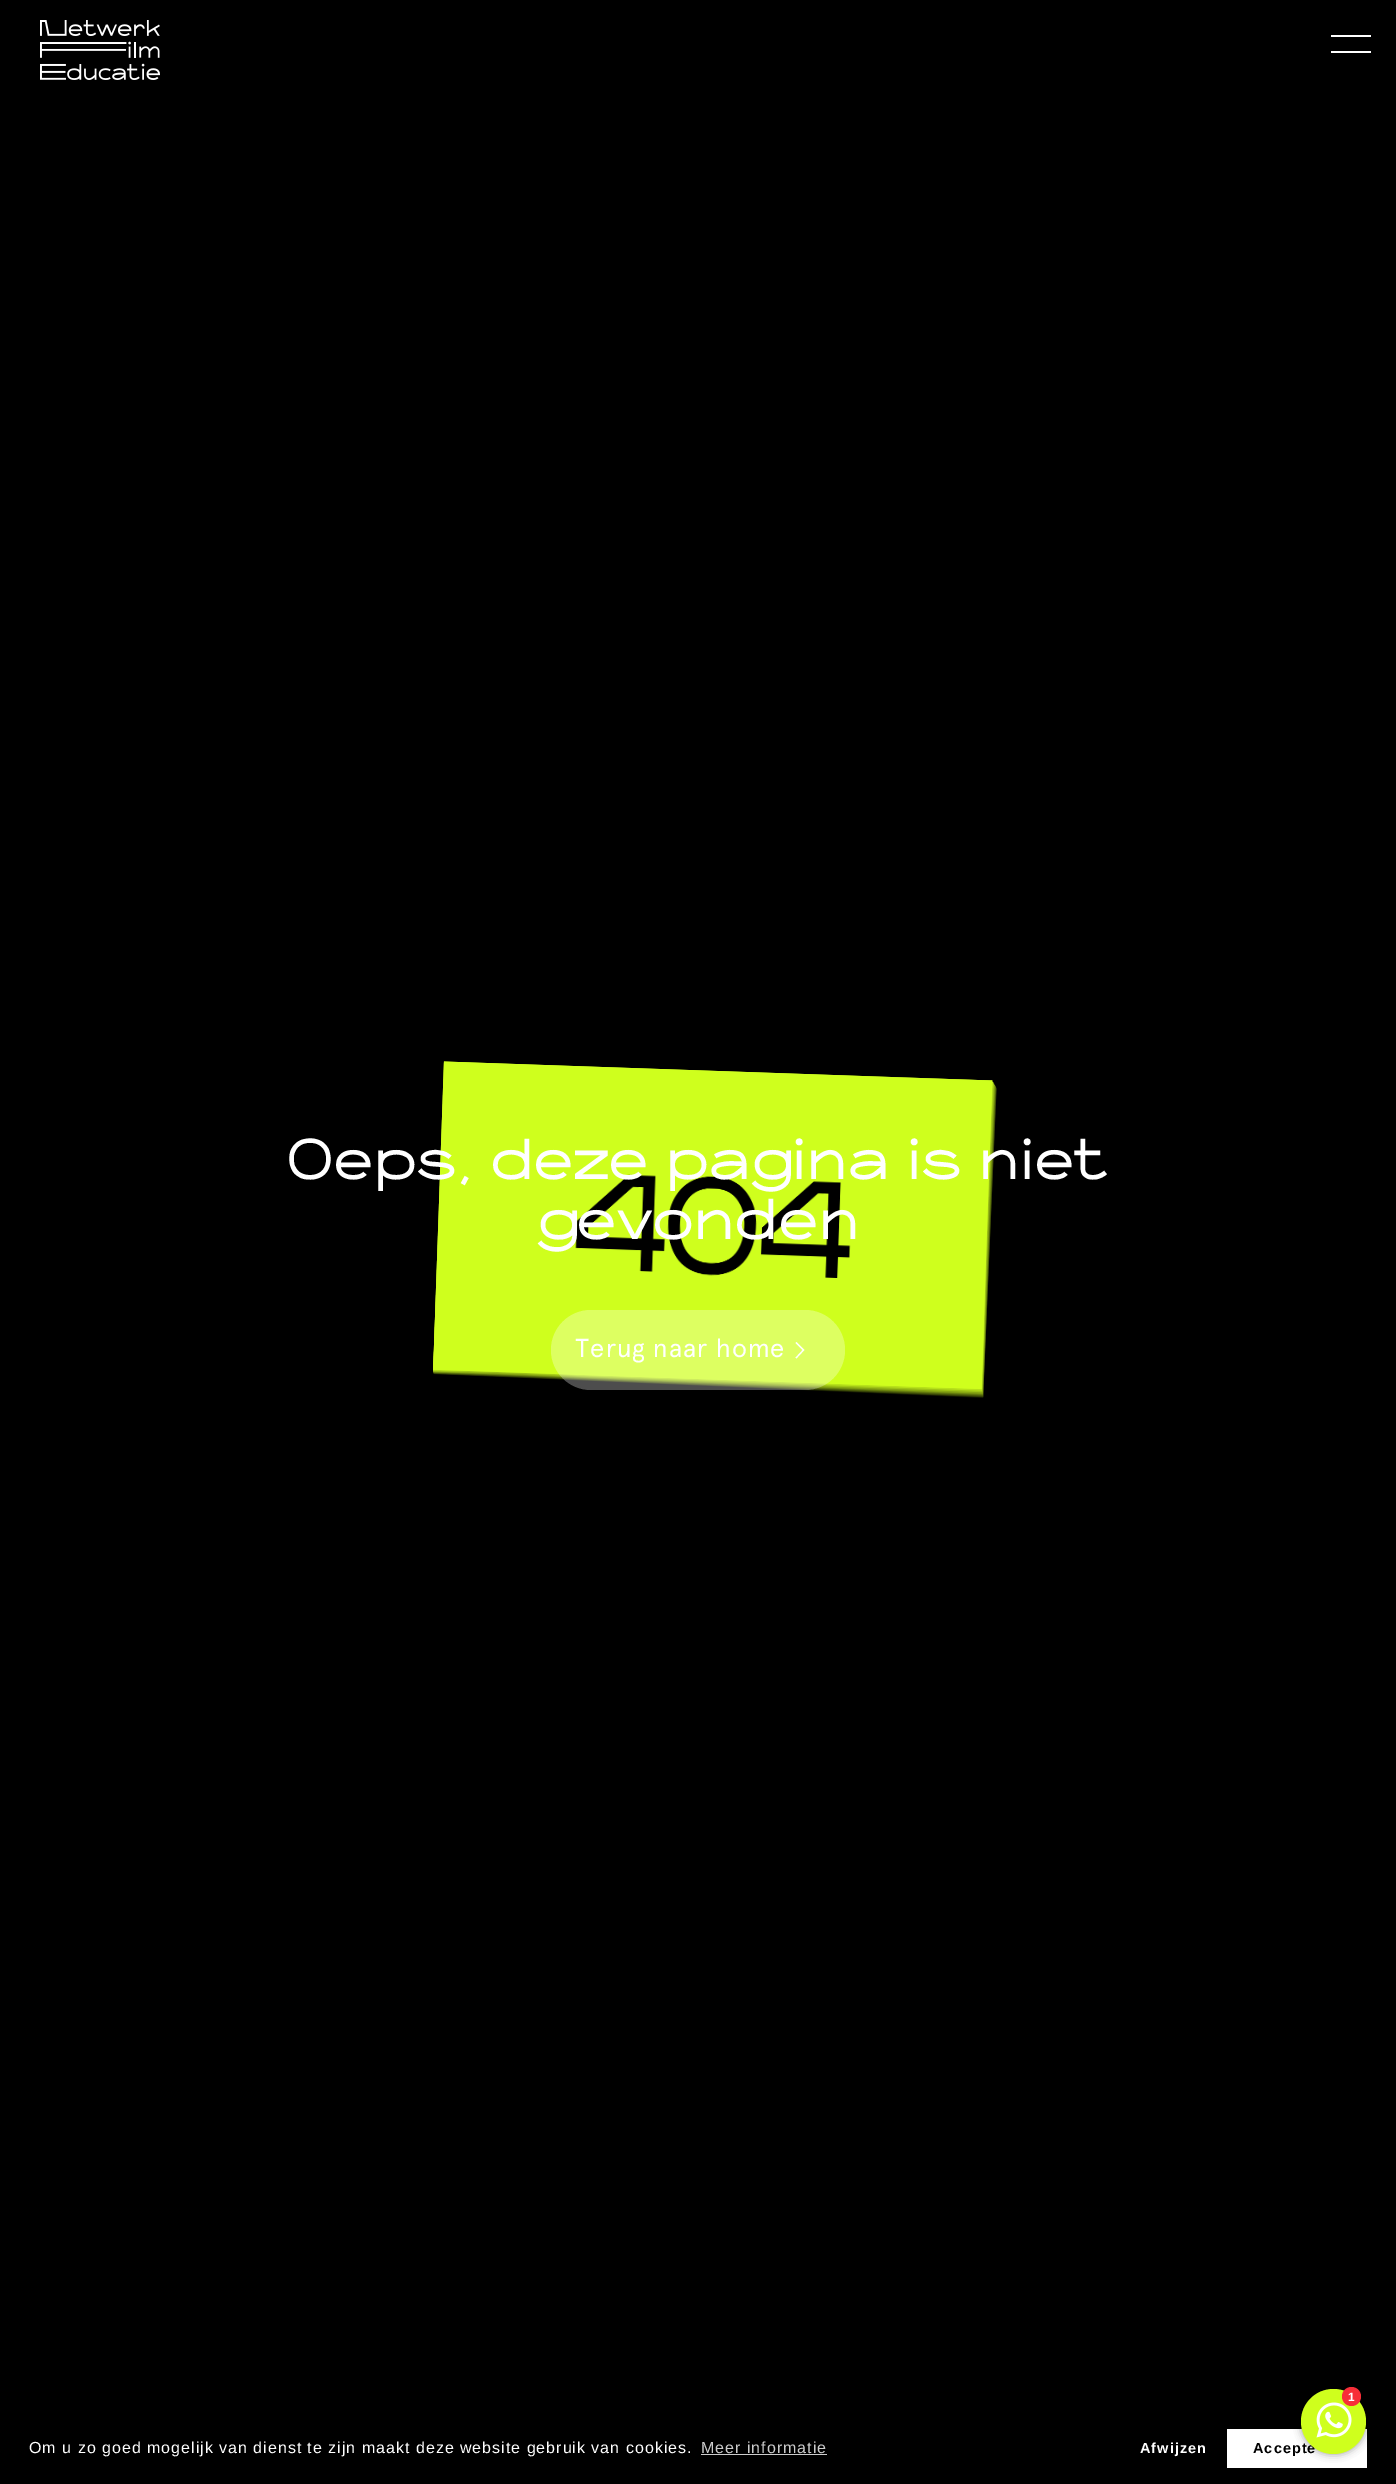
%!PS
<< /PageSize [1396 2484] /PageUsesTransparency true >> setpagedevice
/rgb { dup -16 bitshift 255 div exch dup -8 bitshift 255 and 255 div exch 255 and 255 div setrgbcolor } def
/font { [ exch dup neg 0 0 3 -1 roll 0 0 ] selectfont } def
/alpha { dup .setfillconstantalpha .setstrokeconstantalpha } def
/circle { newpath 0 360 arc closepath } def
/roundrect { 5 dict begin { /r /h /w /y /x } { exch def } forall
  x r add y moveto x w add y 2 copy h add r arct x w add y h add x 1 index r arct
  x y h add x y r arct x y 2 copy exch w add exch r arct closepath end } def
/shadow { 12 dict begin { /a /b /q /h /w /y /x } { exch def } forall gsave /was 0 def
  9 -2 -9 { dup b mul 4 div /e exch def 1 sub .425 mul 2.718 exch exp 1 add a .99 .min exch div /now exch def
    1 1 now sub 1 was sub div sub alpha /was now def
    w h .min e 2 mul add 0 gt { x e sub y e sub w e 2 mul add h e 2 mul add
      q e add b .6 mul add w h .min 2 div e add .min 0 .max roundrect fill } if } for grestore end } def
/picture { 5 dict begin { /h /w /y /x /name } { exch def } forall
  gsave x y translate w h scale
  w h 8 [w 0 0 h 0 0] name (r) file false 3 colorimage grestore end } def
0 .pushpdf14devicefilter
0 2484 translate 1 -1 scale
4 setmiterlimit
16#000000 rgb
0 0 1396 2484 rectfill
(pic1.raw) 40 20 120 60 picture
16#FFFFFF rgb
1331 35 40 2 rectfill
1331 51 40 2 rectfill
(pic2.raw) 433 1061 564 337 picture
(pic3.raw) 433 1061 560 328 picture
/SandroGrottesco-Regular 52 font
287 1179 moveto 1 0 (Oeps, deze pagina is niet) ashow
537 1239 moveto 1 0 (gevonden) ashow
0.3 alpha
551 1310 294 80 40 roundrect fill
/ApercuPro-Regular 26 font
1 alpha
575 1357 moveto 1 0 (Terug naar home) ashow
1.2 setlinewidth
796 1342.5 moveto 803.5 1350 lineto 796 1358 lineto stroke
1227 2429 140 39 rectfill
16#000000 rgb
1301 2389 65 65 32.5 4 0.2 shadow
1301 2389 65 65 32.5 4 0.2 shadow
/LiberationSans-Bold 14.5 font
1253 2453 moveto 1 0 (Accepte) ashow
16#CFFF1D rgb
1333.5 2421.5 32.5 circle fill
(pic4.raw) 1316 2402 36 36 picture
16#F72E38 rgb
1351.5 2396.5 9.5 circle fill
/LiberationSans-Bold 12 font
16#FFFFFF rgb
1348 2401 moveto 1 0 (1) ashow
/LiberationSans-Regular 16 font
29 2453 moveto 1 0 (Om u zo goed mogelijk van dienst te zijn maakt deze website gebruik van cookies.) ashow
16#CCCCCC rgb
701 2453 moveto 1 0 (Meer informatie) ashow
701 2454 126 1 rectfill
/LiberationSans-Bold 14.5 font
16#FFFFFF rgb
1140 2453 moveto 1 0 (Afwijzen) ashow
.poppdf14devicefilter showpage
